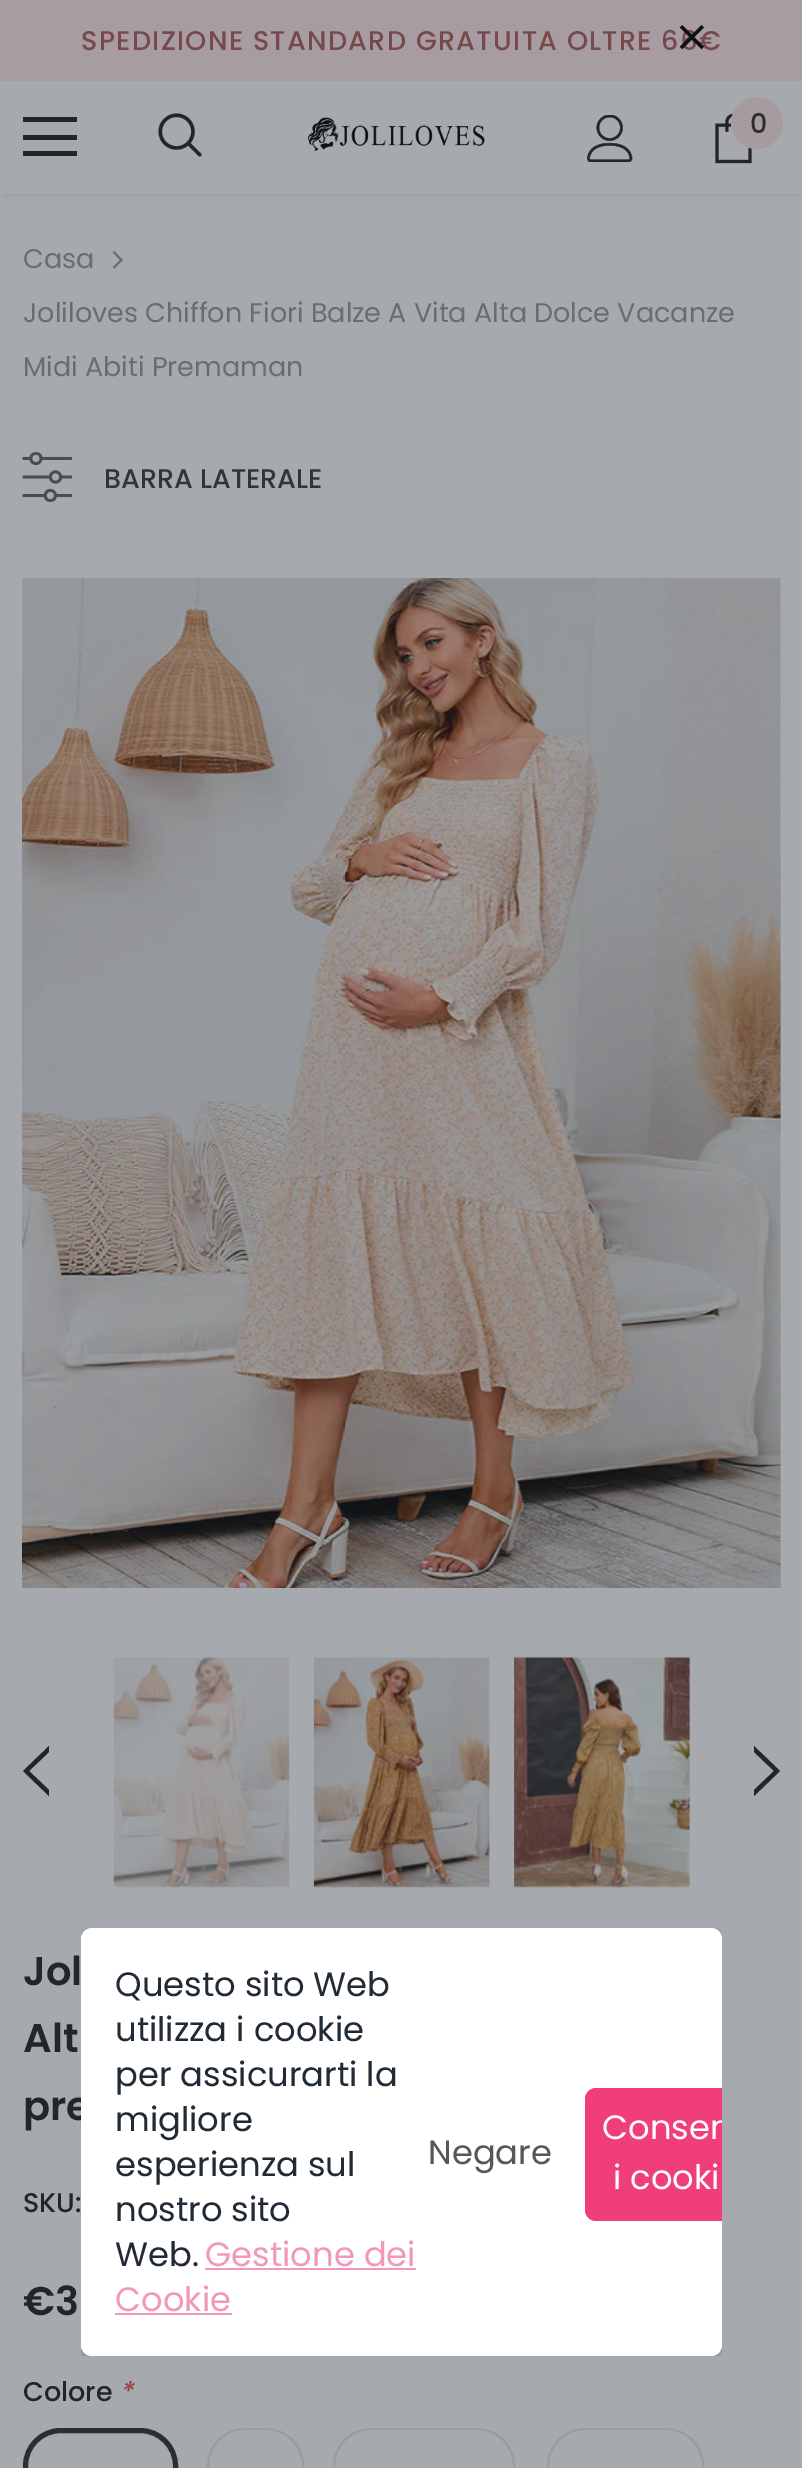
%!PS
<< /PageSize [802 2468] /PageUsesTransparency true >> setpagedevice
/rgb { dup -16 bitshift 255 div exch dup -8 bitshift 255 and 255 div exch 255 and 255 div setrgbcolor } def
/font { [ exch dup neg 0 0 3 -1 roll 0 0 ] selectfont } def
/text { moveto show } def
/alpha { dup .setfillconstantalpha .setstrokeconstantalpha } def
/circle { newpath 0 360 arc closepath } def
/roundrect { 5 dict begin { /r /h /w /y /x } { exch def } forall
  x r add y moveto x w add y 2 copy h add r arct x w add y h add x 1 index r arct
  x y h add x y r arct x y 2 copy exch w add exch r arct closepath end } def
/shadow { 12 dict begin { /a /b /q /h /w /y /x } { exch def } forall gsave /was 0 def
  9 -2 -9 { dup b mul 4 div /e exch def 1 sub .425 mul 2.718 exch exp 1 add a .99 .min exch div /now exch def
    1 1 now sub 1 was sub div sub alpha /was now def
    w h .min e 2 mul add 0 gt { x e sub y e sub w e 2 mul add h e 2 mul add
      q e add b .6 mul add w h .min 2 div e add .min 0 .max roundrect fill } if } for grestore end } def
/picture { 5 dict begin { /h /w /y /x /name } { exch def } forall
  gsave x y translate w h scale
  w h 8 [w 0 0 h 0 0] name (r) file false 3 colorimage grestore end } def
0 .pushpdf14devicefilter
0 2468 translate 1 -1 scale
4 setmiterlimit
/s1 { /Poppins-Medium 27 font 16#2B2F34 rgb } def
/s2 { /Poppins-Regular 27 font 16#696D71 rgb } def
/s3 { /Poppins-Medium 27 font 16#31353A rgb } def
/s4 { /Poppins-SemiBold 40 font 16#22262B rgb } def
/s5 { /Poppins-Medium 27 font 16#22262B rgb } def
/s6 { /Poppins-MediumItalic 27 font 16#99423E rgb } def
/s7 { /Poppins-Regular 33.75 font 16#212B36 rgb } def
/s8 { /Poppins-Regular 33.75 font 16#F297BB rgb } def
/s9 { /Poppins-Regular 33.75 font 16#575757 rgb } def
/s10 { /Poppins-Regular 33.75 font 16#FFFFFF rgb } def
16#A6AAAF rgb
0 0 802 2468 rectfill
16#A69CA1 rgb
0 0 802 81 rectfill
/Poppins-Medium 27 font
16#77494D rgb
81 50 moveto 1.35 0 (SPEDIZIONE STANDARD GRATUITA OLTRE 66€) ashow
(pic1.raw) 679 25 25 25 picture
16#0D1116 rgb
7 95 790 99 0 3.5 0.12 shadow
16#A6AAAF rgb
3 91 798 103 rectfill
16#22262B rgb
23 117 54 5 rectfill
23 135 54 5 rectfill
23 151 54 5 rectfill
(pic2.raw) 158 113 44 44 picture
(pic3.raw) 307 117 178 34 picture
(pic4.raw) 587 115 46 47 picture
(pic5.raw) 715 113 37 51 picture
16#A69B9F rgb
757 123 26 circle fill
s1
(0) 750 133 text
s2
(Casa) 23 268 text
(pic6.raw) 112 251 11 18 picture
(Joliloves Chiffon Fiori Balze A Vita Alta Dolce Vacanze) 23 322 text
(Midi Abiti Premaman) 23 376 text
(pic7.raw) 22 452 50 50 picture
s3
(BARRA LATERALE) 104 488 text
(pic8.raw) 22 578 759 1010 picture
16#22262B rgb
23 1771 moveto 49 1796 lineto 49 1790 lineto 29 1771 lineto 49 1752 lineto 49 1746 lineto closepath fill
(pic9.raw) 113 1656 177 232 picture
(pic10.raw) 313 1657 177 231 picture
(pic11.raw) 514 1656 176 232 picture
777 1768 moveto 754 1746 lineto 754 1752 lineto 774 1771 lineto 754 1790 lineto 754 1796 lineto 780 1771 lineto closepath fill
s4
(Jol) 23 1985 text
(Alt) 23 2052 text
(pre) 23 2120 text
s5
(SKU:) 23 2212 text
s4
(€3) 23 2315 text
s5
(Colore) 23 2401 text
s6
(*) 119 2401 text
16#989CA0 rgb
2 setlinewidth
24 2429 153 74 37 roundrect stroke
16#2B2F34 rgb
5 setlinewidth
25.5 2430.5 150 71 35.5 roundrect stroke
16#989CA0 rgb
2 setlinewidth
208 2429 95 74 37 roundrect stroke
334 2429 180 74 37 roundrect stroke
548 2429 155 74 37 roundrect stroke
gsave
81 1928 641 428 rectclip
16#000000 rgb
81 1933 641 427 11 11 0.2 shadow
grestore
16#FFFFFF rgb
81 1928 641 428 11 roundrect fill
s7
(Questo sito Web) 115 1996 text
(utilizza i cookie) 115 2041 text
(per assicurarti la) 115 2086 text
(migliore) 115 2131 text
(esperienza sul) 115 2176 text
(nostro sito) 115 2221 text
(Web.) 115 2266 text
s8
(Gestione dei) 205 2266 text
205 2268 211 2 rectfill
(Cookie) 115 2311 text
115 2313 117 2 rectfill
s9
(Negare) 428 2164 text
16#F03D7B rgb
596 2088 moveto 722 2088 lineto 722 2221 lineto 596 2221 lineto 590 2221 585 2216 585 2210 curveto 585 2099 lineto 585 2093 590 2088 596 2088 curveto closepath fill
gsave
81 1928 641 428 rectclip
s10
(Consen) 602 2139 text
grestore
s10
(i cooki) 613 2189 text
.poppdf14devicefilter showpage
